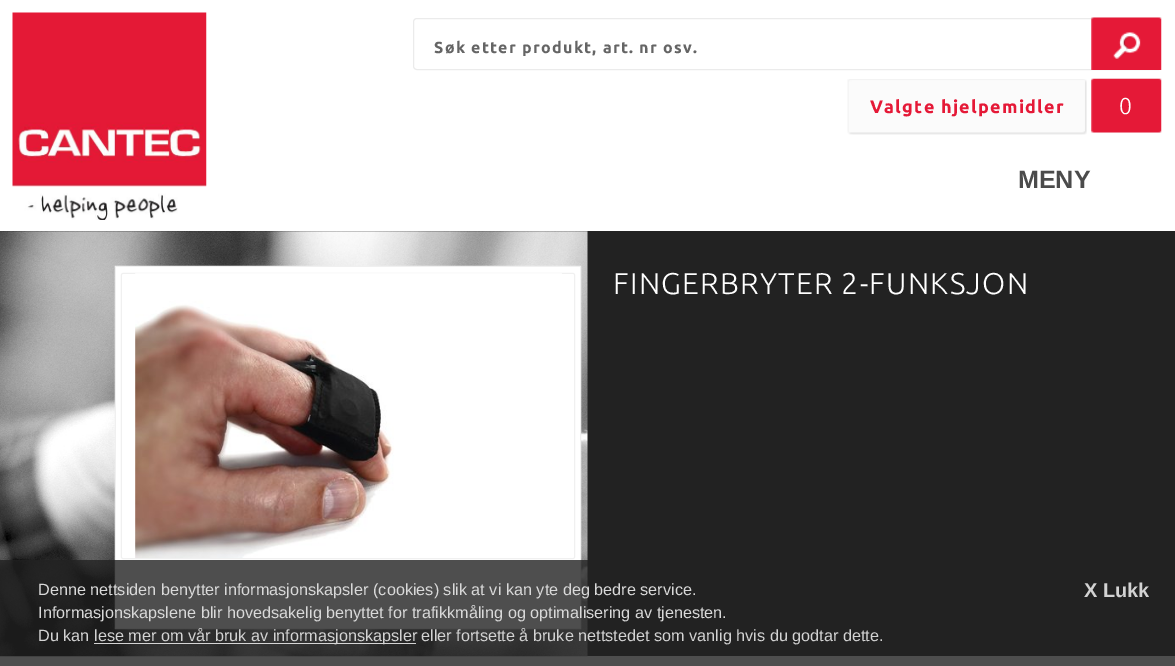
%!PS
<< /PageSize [1175 666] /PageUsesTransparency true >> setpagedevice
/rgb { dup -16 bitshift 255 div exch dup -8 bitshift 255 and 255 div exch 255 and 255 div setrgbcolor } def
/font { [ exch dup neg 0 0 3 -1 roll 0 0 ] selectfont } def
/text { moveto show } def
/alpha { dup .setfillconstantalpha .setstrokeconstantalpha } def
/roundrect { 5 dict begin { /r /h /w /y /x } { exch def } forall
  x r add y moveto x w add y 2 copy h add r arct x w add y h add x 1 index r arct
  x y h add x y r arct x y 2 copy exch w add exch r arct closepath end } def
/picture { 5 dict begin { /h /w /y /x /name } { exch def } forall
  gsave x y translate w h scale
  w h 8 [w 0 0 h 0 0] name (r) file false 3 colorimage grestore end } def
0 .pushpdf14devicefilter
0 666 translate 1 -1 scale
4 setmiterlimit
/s1 { /LiberationSans-Bold 25 font 16#4B4B4B rgb } def
/s2 { /LiberationSans-Regular 16.25 font 16#D9D9D9 rgb } def
/s3 { /LiberationSans-Regular 16.25 font 16#D3D3D3 rgb } def
/s4 { /LiberationSans-Bold 20 font 16#D3D3D3 rgb } def
16#FFFFFF rgb
0 0 1175 666 rectfill
(pic1.raw) 12 12 195 208 picture
16#EBEBEB rgb
417 18.5 moveto 1158.5 18.5 lineto 1158.5 69.5 lineto 417 69.5 lineto 415 69.5 413.5 68 413.5 66 curveto 413.5 22 lineto 413.5 20 415 18.5 417 18.5 curveto closepath stroke
/Ubuntu-Bold 16 font
16#656565 rgb
434 53 moveto 1.25 0 (Søk etter produkt, art. nr osv.) ashow
(pic2.raw) 1091 17 71 53 picture
(pic3.raw) 847 79 240 56 picture
/Ubuntu-Bold 18 font
16#E51937 rgb
870 113 moveto 1.25 0 (Valgte hjelpemidler) ashow
(pic4.raw) 1091 78 71 55 picture
/Ubuntu-Light 23 font
16#FFFFFF rgb
1119 114 moveto 1.25 0 (0) ashow
s1
(MENY) 1018 188 text
16#222222 rgb
0 231 1175 425 rectfill
(pic5.raw) 0 231 588 426 picture
16#FFFFFF rgb
115.45 266.45 moveto 580.55 266.45 lineto 580.55 628.55 lineto 115.45 628.55 lineto closepath gsave fill grestore
16#F0F0F0 rgb
0.9 setlinewidth
stroke
121.45 273.45 453.1 285.1 1.55 roundrect stroke
(pic6.raw) 135 273 427 285 picture
/Ubuntu-Light 30 font
16#FFFFFF rgb
613 294 moveto 1.25 0 (FINGERBRYTER 2-FUNKSJON) ashow
0.8 alpha
16#222222 rgb
0 560 1175 106 rectfill
1 alpha
s2
(Denne nettsiden benytter informasjonskapsler \(cookies\) slik at vi kan yte deg bedre service.) 38 595 text
(Informasjonskapslene blir hovedsakelig benyttet for trafikkmåling og optimalisering av tjenesten.) 38 618 text
s3
(Du kan) 38 641 text
0.8 alpha
16#FFFFFF rgb
94 643 322 1 rectfill
1 alpha
s3
(lese mer om vår bruk av informasjonskapsler) 94 641 text
(eller fortsette å bruke nettstedet som vanlig hvis du godtar dette.) 421 641 text
s4
(X Lukk) 1084 597 text
.poppdf14devicefilter showpage
